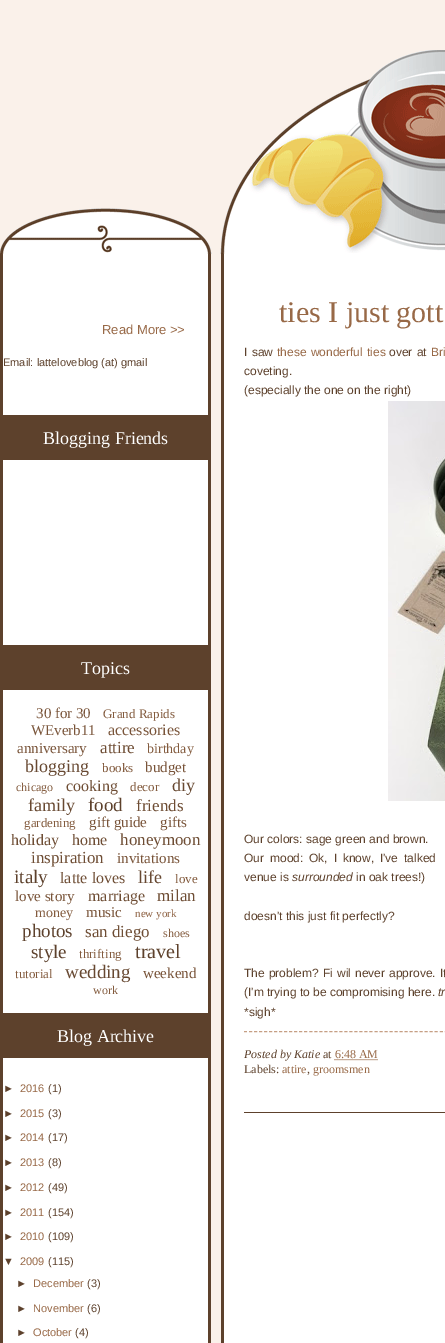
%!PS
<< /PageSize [445 1343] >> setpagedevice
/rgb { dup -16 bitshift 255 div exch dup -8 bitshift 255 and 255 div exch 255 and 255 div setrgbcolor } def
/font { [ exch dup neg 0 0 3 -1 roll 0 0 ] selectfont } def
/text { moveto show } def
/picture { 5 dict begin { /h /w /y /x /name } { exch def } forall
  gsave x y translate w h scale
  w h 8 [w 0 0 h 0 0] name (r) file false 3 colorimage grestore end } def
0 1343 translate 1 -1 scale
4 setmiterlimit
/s1 { /LiberationSans-Regular 13 font 16#986947 rgb } def
/s2 { /LiberationSans-Regular 11 font 16#5D412C rgb } def
/s3 { /LiberationSerif-Regular 18 font 16#FFFFFF rgb } def
/s4 { /LiberationSerif-Regular 15 font 16#795439 rgb } def
/s5 { /LiberationSerif-Regular 13 font 16#835B3E rgb } def
/s6 { /LiberationSerif-Regular 16 font 16#795439 rgb } def
/s7 { /LiberationSerif-Regular 17 font 16#6E4D34 rgb } def
/s8 { /LiberationSerif-Regular 14 font 16#835B3E rgb } def
/s9 { /LiberationSerif-Regular 18 font 16#674831 rgb } def
/s10 { /LiberationSerif-Regular 12 font 16#835B3E rgb } def
/s11 { /LiberationSerif-Regular 16 font 16#6E4D34 rgb } def
/s12 { /LiberationSerif-Regular 19 font 16#5D412C rgb } def
/s13 { /LiberationSerif-Regular 11 font 16#8E6243 rgb } def
/s14 { /LiberationSerif-Regular 20 font 16#5D412C rgb } def
/s15 { /LiberationSerif-Regular 19 font 16#674831 rgb } def
/s16 { /LiberationSans-Regular 11 font 16#986947 rgb } def
/s17 { /LiberationSerif-Regular 30 font 16#986947 rgb } def
/s18 { /LiberationSans-Regular 12 font 16#5D412C rgb } def
/s19 { /LiberationSans-Italic 12 font 16#5D412C rgb } def
/s20 { /LiberationSerif-Italic 12 font 16#5D412C rgb } def
/s21 { /LiberationSerif-Regular 12 font 16#5D412C rgb } def
/s22 { /LiberationSerif-Regular 12 font 16#986947 rgb } def
16#FAF1EA rgb
0 0 445 1343 rectfill
(pic1.raw) 0 50 445 204 picture
16#FFFFFF rgb
3 254 205 1089 rectfill
16#5D412C rgb
208 254 3 1089 rectfill
0 254 3 1089 rectfill
s1
(Read More >>) 102 334 text
s2
(Email: latteloveblog \(at\) gmail) 3 366 text
3 415 205 45 rectfill
s3
(Blogging Friends) 43 444 text
16#5D412C rgb
3 645 205 45 rectfill
s3
(Topics) 81 674 text
s4
(30 for 30) 36 718 text
s5
(Grand Rapids) 103 718 text
s4
(WEverb11) 31 735 text
s6
(accessories) 108 735 text
s4
(anniversary) 17 753 text
s7
(attire) 100 753 text
s8
(birthday) 147 753 text
s9
(blogging) 25 772 text
s5
(books) 102 772 text
s4
(budget) 145 772 text
s10
(chicago) 16 791 text
s11
(cooking) 66 791 text
s5
(decor) 130 791 text
s9
(diy) 172 791 text
(family) 28 811 text
s12
(food) 88 811 text
s7
(friends) 136 811 text
s5
(gardening) 24 827 text
s4
(gift guide) 89 827 text
(gifts) 160 827 text
s11
(holiday) 11 845 text
(home) 72 845 text
s7
(honeymoon) 120 845 text
(inspiration) 31 863 text
s4
(invitations) 117 863 text
s12
(italy) 14 883 text
s11
(latte loves) 60 883 text
s9
(life) 138 883 text
s5
(love) 175 883 text
s4
(love story) 15 901 text
s11
(marriage) 88 901 text
s7
(milan) 157 901 text
s8
(money) 35 917 text
s4
(music) 86 917 text
s13
(new york) 135 917 text
s12
(photos) 22 937 text
s7
(san diego) 85 937 text
s10
(shoes) 163 937 text
s12
(style) 31 958 text
s5
(thrifting) 79 958 text
s14
(travel) 135 958 text
s5
(tutorial) 15 978 text
s15
(wedding) 65 978 text
s4
(weekend) 143 978 text
s10
(work) 93 994 text
16#5D412C rgb
3 1013 205 45 rectfill
s3
(Blog Archive) 57 1042 text
s2
(►) 3 1092 text
s16
(2016) 20 1092 text
s2
(\(1\)) 48 1092 text
(►) 3 1117 text
s16
(2015) 20 1117 text
s2
(\(3\)) 48 1117 text
(►) 3 1141 text
s16
(2014) 20 1141 text
s2
(\(17\)) 48 1141 text
(►) 3 1166 text
s16
(2013) 20 1166 text
s2
(\(8\)) 48 1166 text
(►) 3 1191 text
s16
(2012) 20 1191 text
s2
(\(49\)) 48 1191 text
(►) 3 1216 text
s16
(2011) 20 1216 text
s2
(\(154\)) 48 1216 text
(►) 3 1240 text
s16
(2010) 20 1240 text
s2
(\(109\)) 48 1240 text
(▼) 3 1265 text
s16
(2009) 20 1265 text
s2
(\(115\)) 48 1265 text
(►) 16 1287 text
s16
(December) 33 1287 text
s2
(\(3\)) 87 1287 text
(►) 16 1312 text
s16
(November) 33 1312 text
s2
(\(6\)) 87 1312 text
(►) 16 1336 text
s16
(October) 33 1336 text
s2
(\(4\)) 75 1336 text
16#FFFFFF rgb
224 254 221 1089 rectfill
16#5D412C rgb
221 254 3 1089 rectfill
244 1112 201 1 rectfill
s17
(ties I just gott) 279 322 text
/LiberationSans-Regular 12 font
16#5D412C rgb
244 356 moveto 1 0 32 (I saw) widthshow
16#986947 rgb
277 356 moveto 1 0 32 (these wonderful ties) widthshow
16#5D412C rgb
389 356 moveto 1 0 32 (over at) widthshow
16#986947 rgb
431 356 moveto 1 0 32 (Bri) widthshow
s18
(coveting.) 244 375 text
(\(especially the one on the right\)) 244 394 text
(pic2.raw) 388 401 57 400 picture
(Our colors: sage green and brown.) 244 843 text
244 862 moveto 2.5 0 32 (Our mood: Ok, I know, I've talked) widthshow
(venue is) 244 881 text
s19
(surrounded) 292 881 text
s18
(in oak trees!\)) 356 881 text
(doesn't this just fit perfectly?) 244 920 text
244 977 moveto 0.75 0 32 (The problem? Fi wil never approve. It) widthshow
(\(I'm trying to be compromising here.) 244 996 text
s19
(tr) 438 996 text
s18
(*sigh*) 244 1016 text
16#C69F84 rgb
[3 2.02] 0 setdash
244 1031.5 moveto 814 1031.5 lineto stroke
s20
(Posted by Katie) 244 1058 text
s21
(at) 323 1058 text
s22
(6:48 AM) 335 1058 text
[1 1] 0 setdash
334.5 1059.5 moveto 378 1059.5 lineto stroke
s21
(Labels:) 244 1073 text
s22
(attire) 282 1073 text
s21
(,) 307 1073 text
s22
(groomsmen) 313 1073 text
showpage
